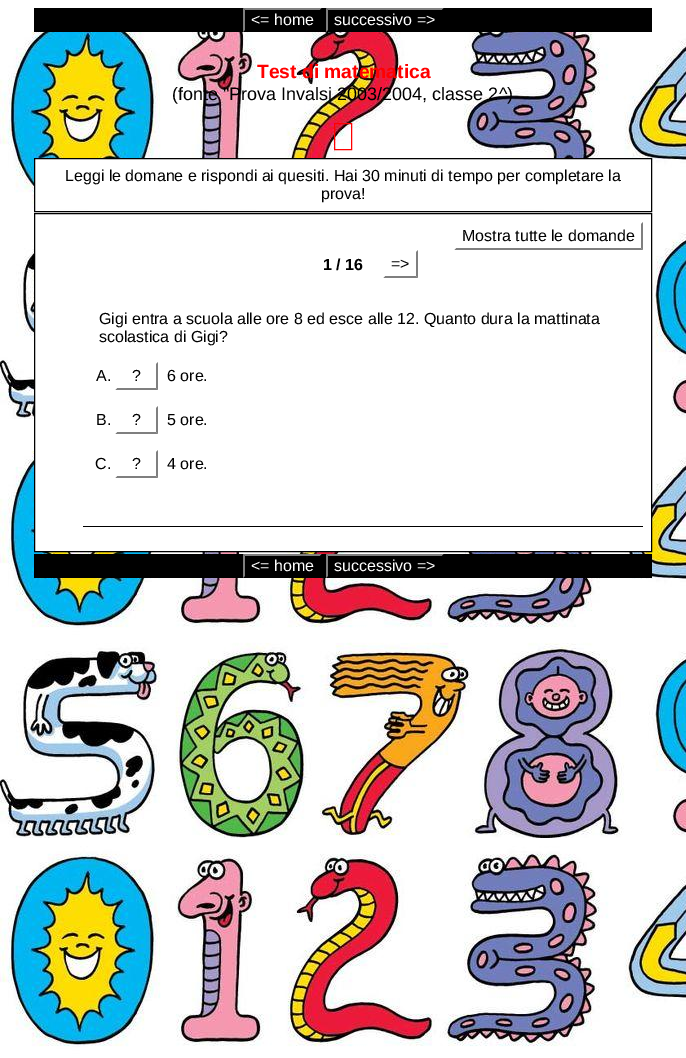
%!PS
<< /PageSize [686 1058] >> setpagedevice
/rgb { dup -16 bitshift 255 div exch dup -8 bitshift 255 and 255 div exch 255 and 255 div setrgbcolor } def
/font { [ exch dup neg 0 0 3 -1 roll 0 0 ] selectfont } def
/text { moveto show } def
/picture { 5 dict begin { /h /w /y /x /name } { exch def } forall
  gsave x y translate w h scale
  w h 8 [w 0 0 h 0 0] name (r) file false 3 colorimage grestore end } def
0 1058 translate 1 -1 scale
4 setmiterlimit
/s1 { /LiberationSans-Regular 16 font 16#FFFFFF rgb } def
/s2 { /LiberationSans-Bold 19.25 font 16#FF0000 rgb } def
/s3 { /LiberationSans-Regular 18 font 16#000000 rgb } def
/s4 { /LiberationSans-Regular 16 font 16#000000 rgb } def
/s5 { /LiberationSans-Bold 16 font 16#000000 rgb } def
16#FFFFFF rgb
0 0 686 1058 rectfill
(pic1.raw) 0 0 686 1058 picture
16#000000 rgb
34 8 618 24 rectfill
16#7F7F7F rgb
243 8 moveto 322 8 lineto 320 10 lineto 245 10 lineto closepath fill
16#000000 rgb
322 8 moveto 322 32 lineto 320 30 lineto 320 10 lineto closepath fill
16#7F7F7F rgb
243 32 moveto 243 8 lineto 245 10 lineto 245 30 lineto closepath fill
s1
(<= home) 251 25 text
16#7F7F7F rgb
326 8 moveto 444 8 lineto 442 10 lineto 328 10 lineto closepath fill
16#000000 rgb
444 8 moveto 444 32 lineto 442 30 lineto 442 10 lineto closepath fill
16#7F7F7F rgb
326 32 moveto 326 8 lineto 328 10 lineto 328 30 lineto closepath fill
s1
(successivo =>) 334 25 text
s2
(Test di matematica) 257 78 text
s3
(\(fonte "Prova Invalsi 2003/2004, classe 2^\)) 172 100 text
16#FF0000 rgb
334.5 123.5 17 26 rectstroke
16#FFFFFF rgb
35 159 614 50 rectfill
16#000000 rgb
34.5 158.5 617 53 rectstroke
s4
(Leggi le domane e rispondi ai quesiti. Hai 30 minuti di tempo per completare la) 65 181 text
(prova!) 321 199 text
16#FFFFFF rgb
35 223 616 328 rectfill
16#000000 rgb
34.5 213.5 617 338 rectstroke
16#7F7F7F rgb
643 222 moveto 643 250 lineto 641 248 lineto 641 224 lineto closepath fill
643 250 moveto 454 250 lineto 456 248 lineto 641 248 lineto closepath fill
16#FFFFFF rgb
454 250 moveto 454 222 lineto 456 224 lineto 456 248 lineto closepath fill
s4
(Mostra tutte le domande) 462 241 text
s5
(1 / 16) 323 270 text
16#7F7F7F rgb
418 250 moveto 418 278 lineto 416 276 lineto 416 252 lineto closepath fill
418 278 moveto 383 278 lineto 385 276 lineto 416 276 lineto closepath fill
16#FFFFFF rgb
383 278 moveto 383 250 lineto 385 252 lineto 385 276 lineto closepath fill
s4
(=>) 391 269 text
83 526 560 1 rectfill
(Gigi entra a scuola alle ore 8 ed esce alle 12. Quanto dura la mattinata) 99 324 text
(scolastica di Gigi?) 99 342 text
(A.) 96 381 text
16#7F7F7F rgb
158 362 moveto 158 390 lineto 156 388 lineto 156 364 lineto closepath fill
158 390 moveto 115 390 lineto 117 388 lineto 156 388 lineto closepath fill
16#FFFFFF rgb
115 390 moveto 115 362 lineto 117 364 lineto 117 388 lineto closepath fill
s4
(?) 132 381 text
(6 ore.) 167 381 text
(B.) 96 425 text
16#7F7F7F rgb
158 406 moveto 158 434 lineto 156 432 lineto 156 408 lineto closepath fill
158 434 moveto 115 434 lineto 117 432 lineto 156 432 lineto closepath fill
16#FFFFFF rgb
115 434 moveto 115 406 lineto 117 408 lineto 117 432 lineto closepath fill
s4
(?) 132 425 text
(5 ore.) 167 425 text
(C.) 95 469 text
16#7F7F7F rgb
158 450 moveto 158 478 lineto 156 476 lineto 156 452 lineto closepath fill
158 478 moveto 115 478 lineto 117 476 lineto 156 476 lineto closepath fill
16#FFFFFF rgb
115 478 moveto 115 450 lineto 117 452 lineto 117 476 lineto closepath fill
s4
(?) 132 469 text
(4 ore.) 167 469 text
34 554 618 24 rectfill
16#7F7F7F rgb
243 554 moveto 322 554 lineto 320 556 lineto 245 556 lineto closepath fill
16#000000 rgb
322 554 moveto 322 578 lineto 320 576 lineto 320 556 lineto closepath fill
16#7F7F7F rgb
243 578 moveto 243 554 lineto 245 556 lineto 245 576 lineto closepath fill
s1
(<= home) 251 571 text
16#7F7F7F rgb
326 554 moveto 444 554 lineto 442 556 lineto 328 556 lineto closepath fill
16#000000 rgb
444 554 moveto 444 578 lineto 442 576 lineto 442 556 lineto closepath fill
16#7F7F7F rgb
326 578 moveto 326 554 lineto 328 556 lineto 328 576 lineto closepath fill
s1
(successivo =>) 334 571 text
showpage
